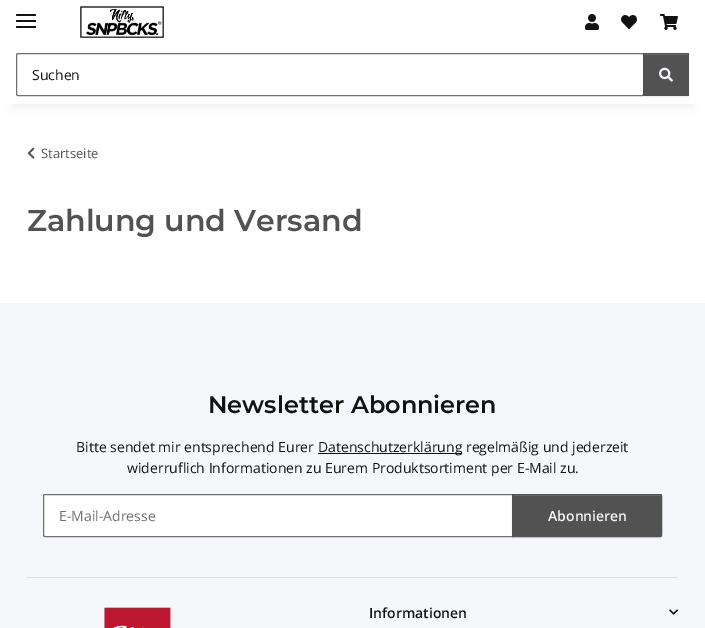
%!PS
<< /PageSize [705 628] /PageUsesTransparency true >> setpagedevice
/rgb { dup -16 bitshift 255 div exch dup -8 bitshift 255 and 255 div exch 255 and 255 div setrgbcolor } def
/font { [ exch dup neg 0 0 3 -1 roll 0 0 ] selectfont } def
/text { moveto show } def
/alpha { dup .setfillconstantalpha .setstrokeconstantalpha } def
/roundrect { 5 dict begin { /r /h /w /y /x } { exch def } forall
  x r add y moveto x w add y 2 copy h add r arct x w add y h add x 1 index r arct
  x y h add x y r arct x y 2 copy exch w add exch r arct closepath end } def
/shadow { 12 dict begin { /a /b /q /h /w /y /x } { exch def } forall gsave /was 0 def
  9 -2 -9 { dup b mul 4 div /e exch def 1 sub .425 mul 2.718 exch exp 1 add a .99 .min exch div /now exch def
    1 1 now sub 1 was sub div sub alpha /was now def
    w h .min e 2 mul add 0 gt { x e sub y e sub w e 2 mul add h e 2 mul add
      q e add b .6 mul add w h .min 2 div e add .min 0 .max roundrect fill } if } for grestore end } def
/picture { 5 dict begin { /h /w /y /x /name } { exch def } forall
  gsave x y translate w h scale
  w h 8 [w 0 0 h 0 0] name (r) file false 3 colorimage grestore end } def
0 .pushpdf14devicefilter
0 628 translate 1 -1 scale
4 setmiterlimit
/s1 { /OpenSans-Regular 14 font 16#121212 rgb } def
/s2 { /OpenSans-Regular 13 font 16#525252 rgb } def
/s3 { /Montserrat-SemiBold 30 font 16#525252 rgb } def
/s4 { /Montserrat-SemiBold 24 font 16#121212 rgb } def
/s5 { /OpenSans-Regular 14 font 16#707070 rgb } def
/s6 { /OpenSans-SemiBold 14 font 16#F5F7FA rgb } def
/s7 { /OpenSans-SemiBold 14 font 16#121212 rgb } def
16#F5F7FA rgb
0 0 705 628 rectfill
16#FFFFFF rgb
0 104 705 199 rectfill
16#000000 rgb
12 28 681 80 0 4.5 0.06 shadow
16#FFFFFF rgb
0 0 705 104 rectfill
16#121212 rgb
16 20 20 2 1 roundrect fill
16 14 20 2 1 roundrect fill
16 26 20 2 1 roundrect fill
(pic1.raw) 80 6 84 32 picture
(pic2.raw) 585 14 14 16 picture
(pic3.raw) 621 15 16 14 picture
(pic4.raw) 660 14 18 16 picture
16#707070 rgb
16.5 53.5 627 42 1.5 roundrect stroke
s1
(Suchen) 32 80 text
16#000000 rgb
643 54 46 43 0 0.5 0.07 shadow
16#525252 rgb
643 53 46 43 rectfill
16#6C6C6C rgb
644 54 44 1 rectfill
(pic5.raw) 659 67 14 15 picture
(pic6.raw) 27 147 8 12 picture
s2
(Startseite) 41 158 text
s3
(Zahlung und Versand) 27 231 text
s4
(Newsletter Abonnieren) 208 413 text
s1
(Bitte sendet mir entsprechend Eurer) 76 452 text
318 453 144 1 rectfill
(Datenschutzerklärung regelmäßig und jederzeit) 318 452 text
(widerruflich Informationen zu Eurem Produktsortiment per E-Mail zu.) 127 473 text
16#FFFFFF rgb
45 494.5 moveto 512.5 494.5 lineto 512.5 536.5 lineto 45 536.5 lineto 44 536.5 43.5 536 43.5 535 curveto 43.5 496 lineto 43.5 495 44 494.5 45 494.5 curveto closepath gsave fill grestore
16#707070 rgb
stroke
(E-Mail-Adresse) 59 521 text
16#000000 rgb
512 495 150 43 2 0.5 0.07 shadow
16#525252 rgb
512 494 moveto 660 494 lineto 661 494 662 495 662 496 curveto 662 535 lineto 662 536 661 537 660 537 curveto 512 537 lineto closepath fill
16#6C6C6C rgb
513 496 moveto 660 496 lineto 661 496 661 496 661 497 curveto 661 495 lineto 513 495 lineto closepath fill
16#525252 rgb
512.5 494.5 moveto 660 494.5 lineto 661 494.5 661.5 495 661.5 496 curveto 661.5 535 lineto 661.5 536 661 536.5 660 536.5 curveto 512.5 536.5 lineto closepath stroke
s6
(Abonnieren) 548 521 text
16#DDDEE1 rgb
27 577 651 1 rectfill
(pic7.raw) 104 607 67 21 picture
s7
(Informationen) 369 618 text
(pic8.raw) 669 609 9 6 picture
.poppdf14devicefilter showpage
